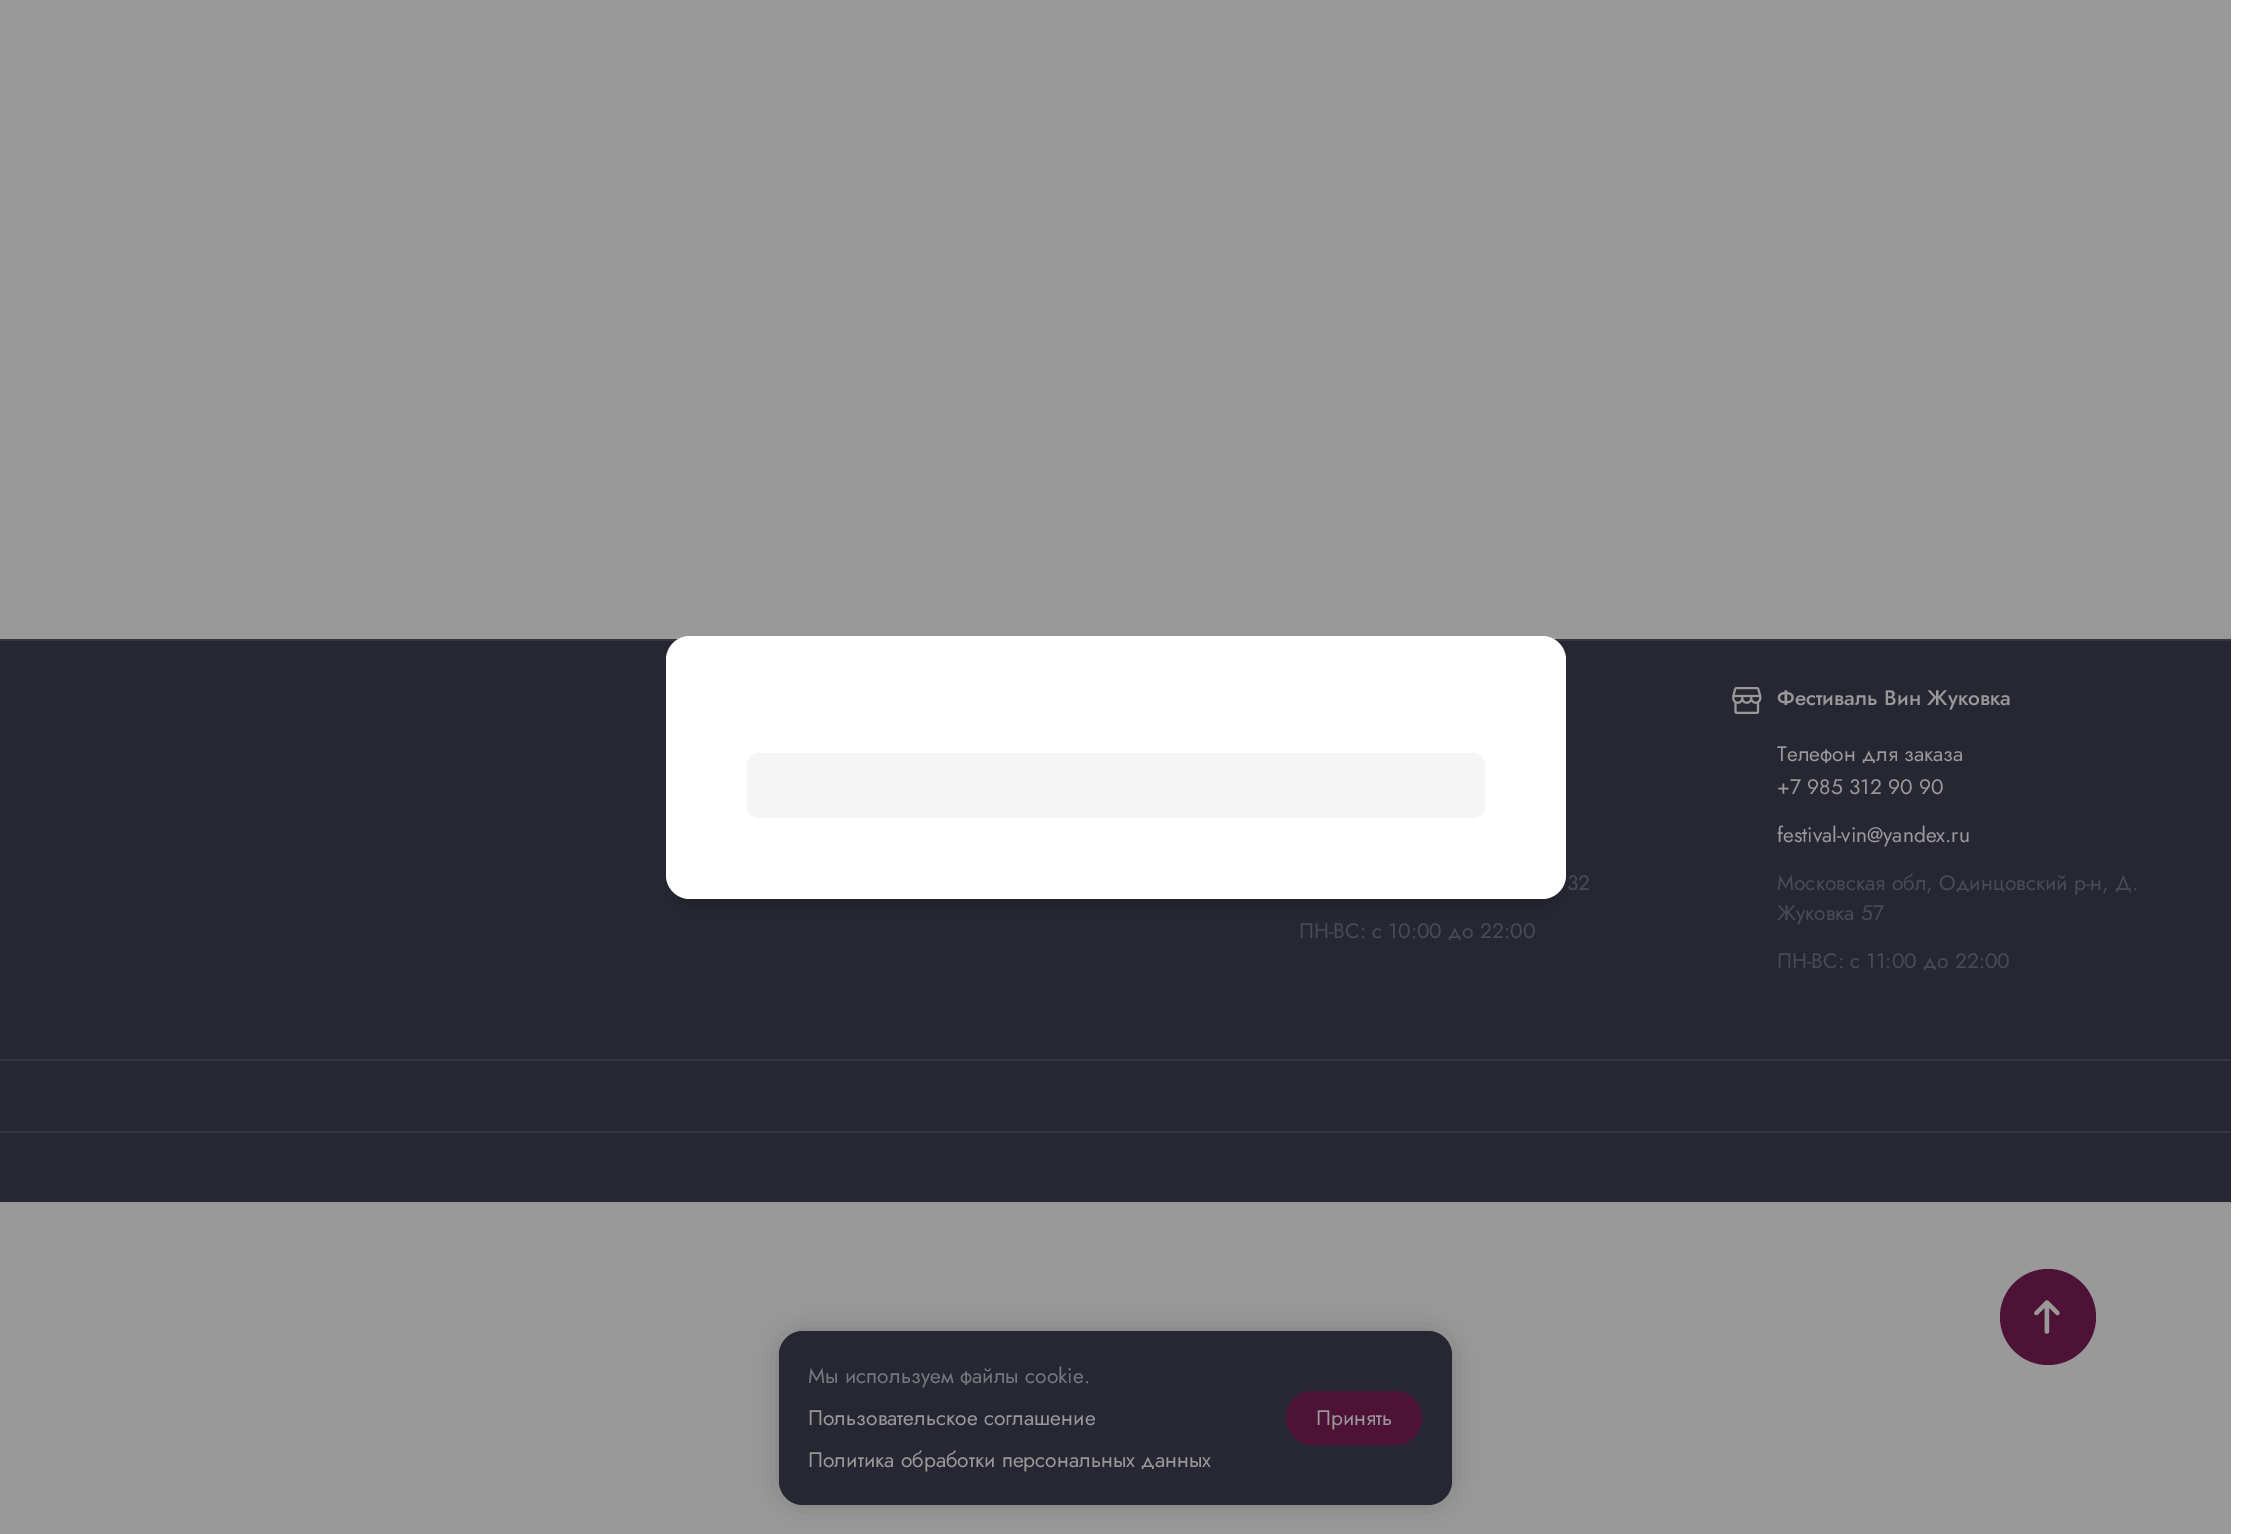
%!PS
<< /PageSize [2253 1534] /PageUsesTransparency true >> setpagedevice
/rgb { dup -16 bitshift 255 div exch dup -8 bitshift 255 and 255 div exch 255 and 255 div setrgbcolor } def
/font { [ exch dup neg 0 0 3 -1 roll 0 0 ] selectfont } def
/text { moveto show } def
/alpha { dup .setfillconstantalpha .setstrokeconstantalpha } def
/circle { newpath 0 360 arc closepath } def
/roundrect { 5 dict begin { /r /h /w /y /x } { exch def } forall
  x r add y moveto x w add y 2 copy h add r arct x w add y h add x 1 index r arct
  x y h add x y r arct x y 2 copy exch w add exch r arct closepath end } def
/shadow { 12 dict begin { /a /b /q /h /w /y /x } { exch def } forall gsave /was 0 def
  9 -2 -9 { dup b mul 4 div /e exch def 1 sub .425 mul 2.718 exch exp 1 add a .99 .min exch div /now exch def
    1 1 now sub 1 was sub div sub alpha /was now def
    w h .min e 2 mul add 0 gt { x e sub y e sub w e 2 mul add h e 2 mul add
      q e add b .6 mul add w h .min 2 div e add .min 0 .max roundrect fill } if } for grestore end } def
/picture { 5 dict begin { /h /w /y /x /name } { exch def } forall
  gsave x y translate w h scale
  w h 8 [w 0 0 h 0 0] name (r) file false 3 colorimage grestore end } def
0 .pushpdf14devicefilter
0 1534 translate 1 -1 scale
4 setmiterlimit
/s1 { /Jost-Regular 21 font 16#494A52 rgb } def
/s2 { /Jost-Medium 21 font 16#999999 rgb } def
/s3 { /Jost-Regular 21 font 16#999999 rgb } def
/s4 { /Jost-Regular 21 font 16#76777A rgb } def
16#FFFFFF rgb
0 0 2253 1534 rectfill
16#999999 rgb
0 0 2231 1534 rectfill
16#262733 rgb
0 641 2231 561 rectfill
16#34353F rgb
0 639 2231 2 rectfill
16#000000 rgb
677 663 879 242 14 11 0.2 shadow
16#FFFFFF rgb
666 636 900 263 24 roundrect fill
16#F5F5F5 rgb
747 753 738 65 12 roundrect fill
s1
(32) 1567 890 text
(ПН-ВС: с 10:00 до 22:00) 1299 938 text
(pic1.raw) 1732 687 30 27 picture
s2
(Фестиваль Вин Жуковка) 1777 705 text
s3
(Телефон для заказа) 1777 761 text
(+7 985 312 90 90) 1777 794 text
(festival-vin@yandex.ru) 1777 842 text
s1
(Московская обл, Одинцовский р-н, Д.) 1777 890 text
(Жуковка 57) 1777 920 text
(ПН-ВС: с 11:00 до 22:00) 1777 968 text
16#34353F rgb
0 1059 2231 2 rectfill
0 1131 2231 2 rectfill
16#4F1237 rgb
2048 1317 48 circle fill
(pic2.raw) 2034 1300 26 34 picture
16#0F0F0F rgb
779 1331 673 174 24 13.5 0.2 shadow
16#262733 rgb
779 1331 673 174 24 roundrect fill
s4
(Мы используем файлы cookie.) 808 1383 text
s3
(Пользовательское соглашение) 808 1425 text
(Политика обработки персональных данных) 808 1467 text
16#4F1237 rgb
1286 1391 136 54 27 roundrect fill
s3
(Принять) 1316 1425 text
.poppdf14devicefilter showpage
